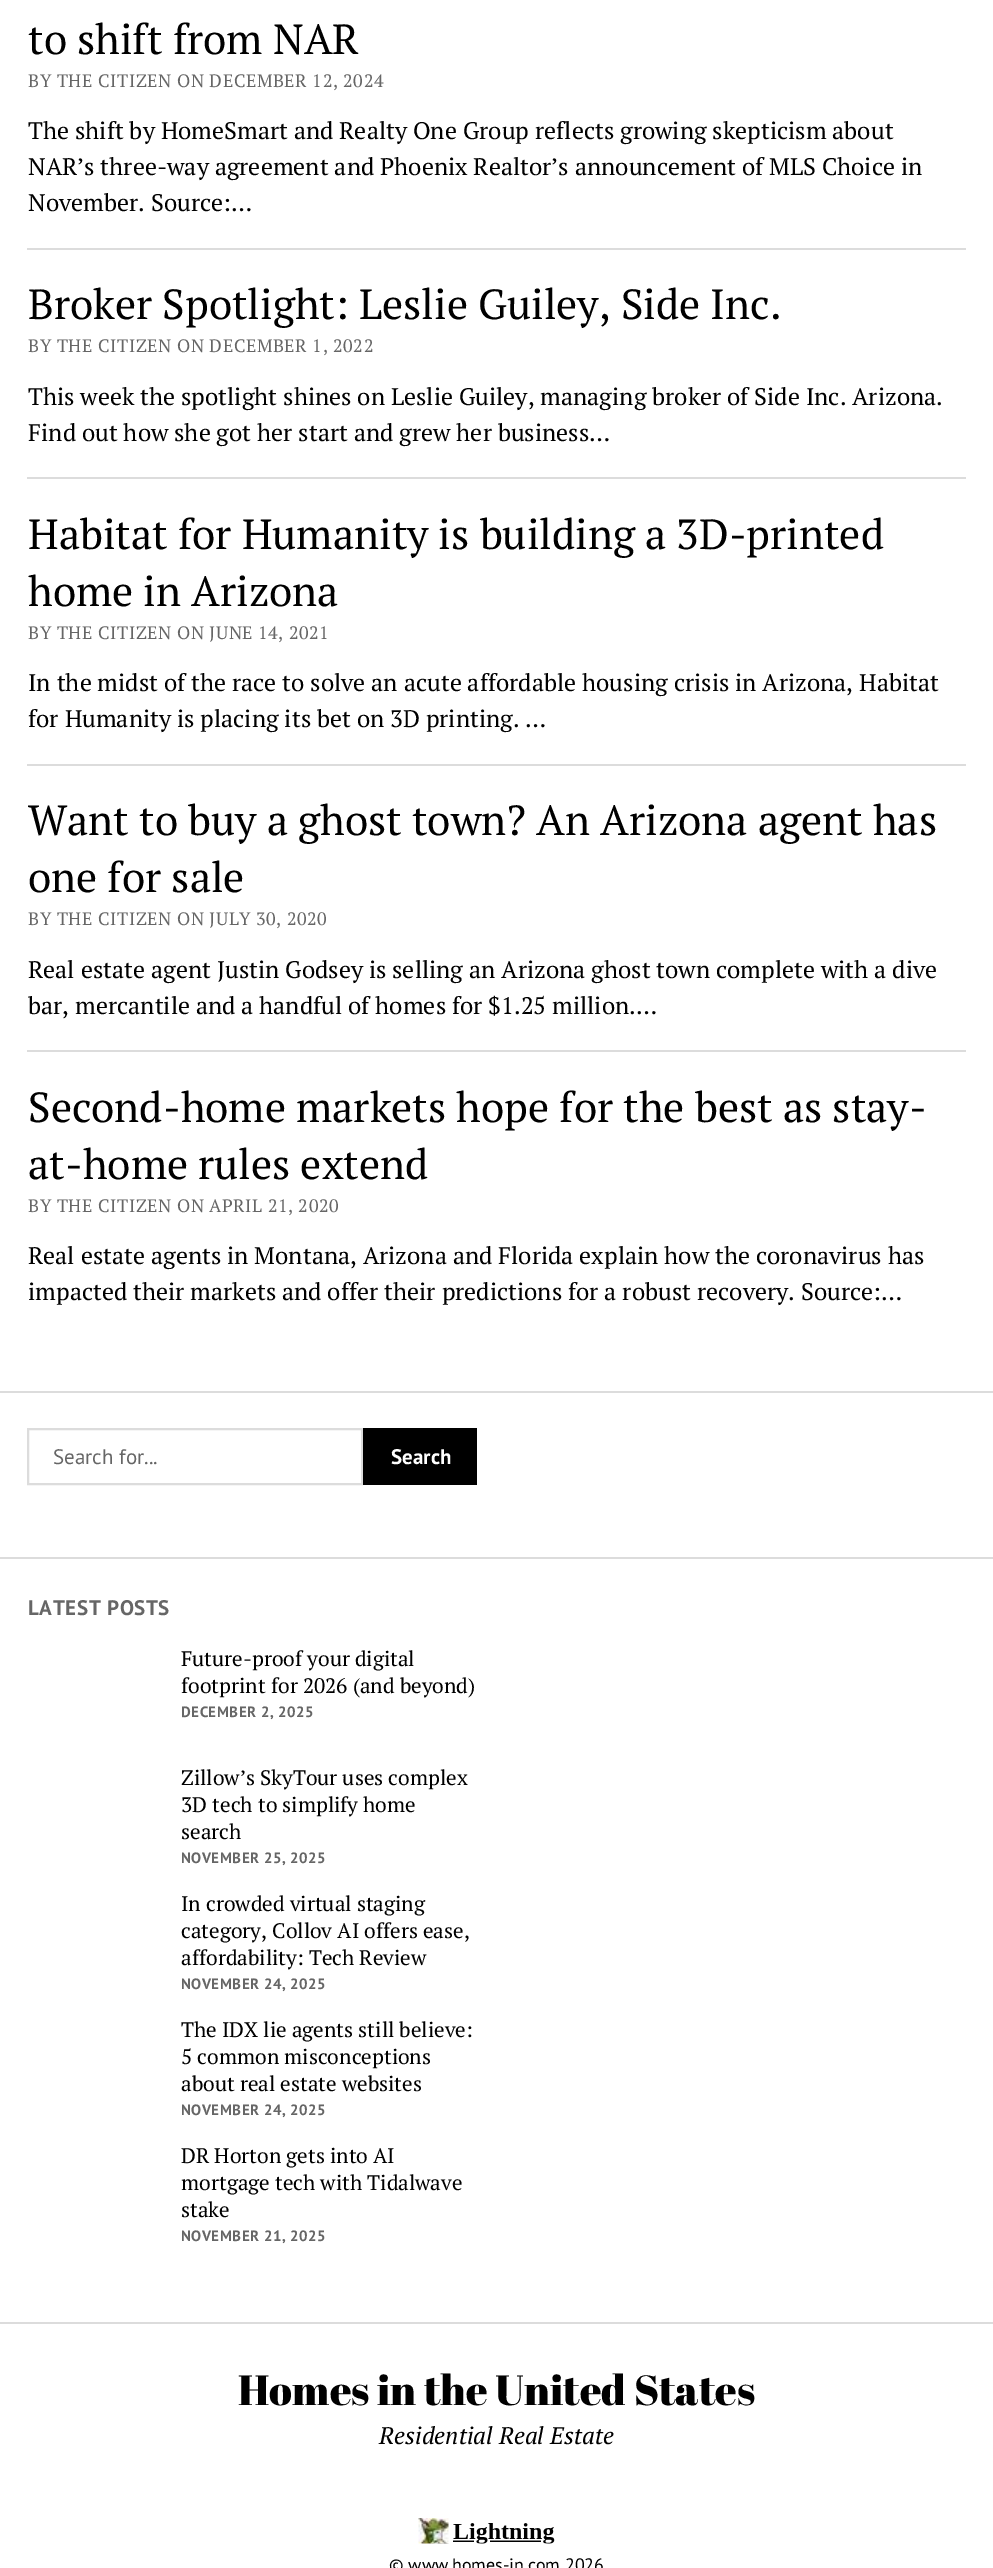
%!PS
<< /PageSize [993 2568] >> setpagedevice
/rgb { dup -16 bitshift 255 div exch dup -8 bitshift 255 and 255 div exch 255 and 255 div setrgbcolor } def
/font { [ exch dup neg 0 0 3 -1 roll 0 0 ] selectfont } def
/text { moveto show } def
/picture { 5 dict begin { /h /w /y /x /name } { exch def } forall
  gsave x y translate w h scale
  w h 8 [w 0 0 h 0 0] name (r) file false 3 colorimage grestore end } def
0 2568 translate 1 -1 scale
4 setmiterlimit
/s1 { /PTSerif-Regular 42 font 16#000000 rgb } def
/s2 { /PTSerif-Regular 24 font 16#000000 rgb } def
/s3 { /PTSans-Regular 21 font 16#666666 rgb } def
/s4 { /PTSans-Bold 21 font 16#FFFFFF rgb } def
/s5 { /PTSerif-Regular 21 font 16#000000 rgb } def
/s6 { /AbrilFatface-Regular 42 font 16#000000 rgb } def
/s7 { /PTSerif-Italic 24 font 16#000000 rgb } def
/s8 { /PTSans-Regular 18 font 16#000000 rgb } def
16#FFFFFF rgb
0 0 993 2568 rectfill
16#DCDCDC rgb
27 248 939 2 rectfill
s1
(to shift from NAR) 28 54 text
/PTSerif-Regular 18 font
16#666666 rgb
28 87 moveto 0.55 0 (BY THE CITIZEN ON DECEMBER 12, 2024) ashow
s2
(The shift by HomeSmart and Realty One Group reflects growing skepticism about) 28 139 text
(NAR’s three-way agreement and Phoenix Realtor’s announcement of MLS Choice in) 28 175 text
(November. Source:…) 28 211 text
16#DCDCDC rgb
27 477 939 2 rectfill
s1
(Broker Spotlight: Leslie Guiley, Side Inc.) 28 319 text
/PTSerif-Regular 18 font
16#666666 rgb
28 352 moveto 0.55 0 (BY THE CITIZEN ON DECEMBER 1, 2022) ashow
s2
(This week the spotlight shines on Leslie Guiley, managing broker of Side Inc. Arizona.) 28 405 text
(Find out how she got her start and grew her business…) 28 441 text
16#DCDCDC rgb
27 764 939 2 rectfill
s1
(Habitat for Humanity is building a 3D-printed) 28 549 text
(home in Arizona) 28 606 text
/PTSerif-Regular 18 font
16#666666 rgb
28 639 moveto 0.55 0 (BY THE CITIZEN ON JUNE 14, 2021) ashow
s2
(In the midst of the race to solve an acute affordable housing crisis in Arizona, Habitat) 28 691 text
(for Humanity is placing its bet on 3D printing. …) 28 727 text
16#DCDCDC rgb
27 1050 939 2 rectfill
s1
(Want to buy a ghost town? An Arizona agent has) 28 835 text
(one for sale) 28 892 text
/PTSerif-Regular 18 font
16#666666 rgb
28 925 moveto 0.55 0 (BY THE CITIZEN ON JULY 30, 2020) ashow
s2
(Real estate agent Justin Godsey is selling an Arizona ghost town complete with a dive) 28 978 text
(bar, mercantile and a handful of homes for $1.25 million.…) 28 1014 text
s1
(Second-home markets hope for the best as stay-) 28 1122 text
(at-home rules extend) 28 1179 text
/PTSerif-Regular 18 font
16#666666 rgb
28 1212 moveto 0.55 0 (BY THE CITIZEN ON APRIL 21, 2020) ashow
s2
(Real estate agents in Montana, Arizona and Florida explain how the coronavirus has) 28 1264 text
(impacted their markets and offer their predictions for a robust recovery. Source:…) 28 1300 text
16#DCDCDC rgb
0 1391 993 2 rectfill
2 setlinewidth
28 1429 334 55 rectstroke
s3
(Search for...) 53 1464 text
16#000000 rgb
363 1428 114 57 rectfill
s4
(Search) 391 1464 text
16#DCDCDC rgb
0 1557 993 2 rectfill
16#666666 rgb
28 1615 moveto 0.6 0 (LATEST POSTS) ashow
s5
(Future-proof your digital) 181 1666 text
(footprint for 2026 \(and beyond\)) 181 1693 text
/PTSans-Bold 15 font
16#666666 rgb
181 1717 moveto 0.5 0 (DECEMBER 2, 2025) ashow
s5
(Zillow’s SkyTour uses complex) 181 1785 text
(3D tech to simplify home) 181 1812 text
(search) 181 1839 text
/PTSans-Bold 15 font
16#666666 rgb
181 1863 moveto 0.5 0 (NOVEMBER 25, 2025) ashow
s5
(In crowded virtual staging) 181 1911 text
(category, Collov AI offers ease,) 181 1938 text
(affordability: Tech Review) 181 1965 text
/PTSans-Bold 15 font
16#666666 rgb
181 1989 moveto 0.5 0 (NOVEMBER 24, 2025) ashow
s5
(The IDX lie agents still believe:) 181 2037 text
(5 common misconceptions) 181 2064 text
(about real estate websites) 181 2091 text
/PTSans-Bold 15 font
16#666666 rgb
181 2115 moveto 0.5 0 (NOVEMBER 24, 2025) ashow
s5
(DR Horton gets into AI) 181 2163 text
(mortgage tech with Tidalwave) 181 2190 text
(stake) 181 2217 text
/PTSans-Bold 15 font
16#666666 rgb
181 2241 moveto 0.5 0 (NOVEMBER 21, 2025) ashow
16#DCDCDC rgb
0 2322 993 2 rectfill
s6
(Homes in the United States) 238 2405 text
s7
(Residential Real Estate) 379 2444 text
(pic1.raw) 418 2518 137 26 picture
s8
(© www.homes-in.com 2026) 389 2571 text
showpage
